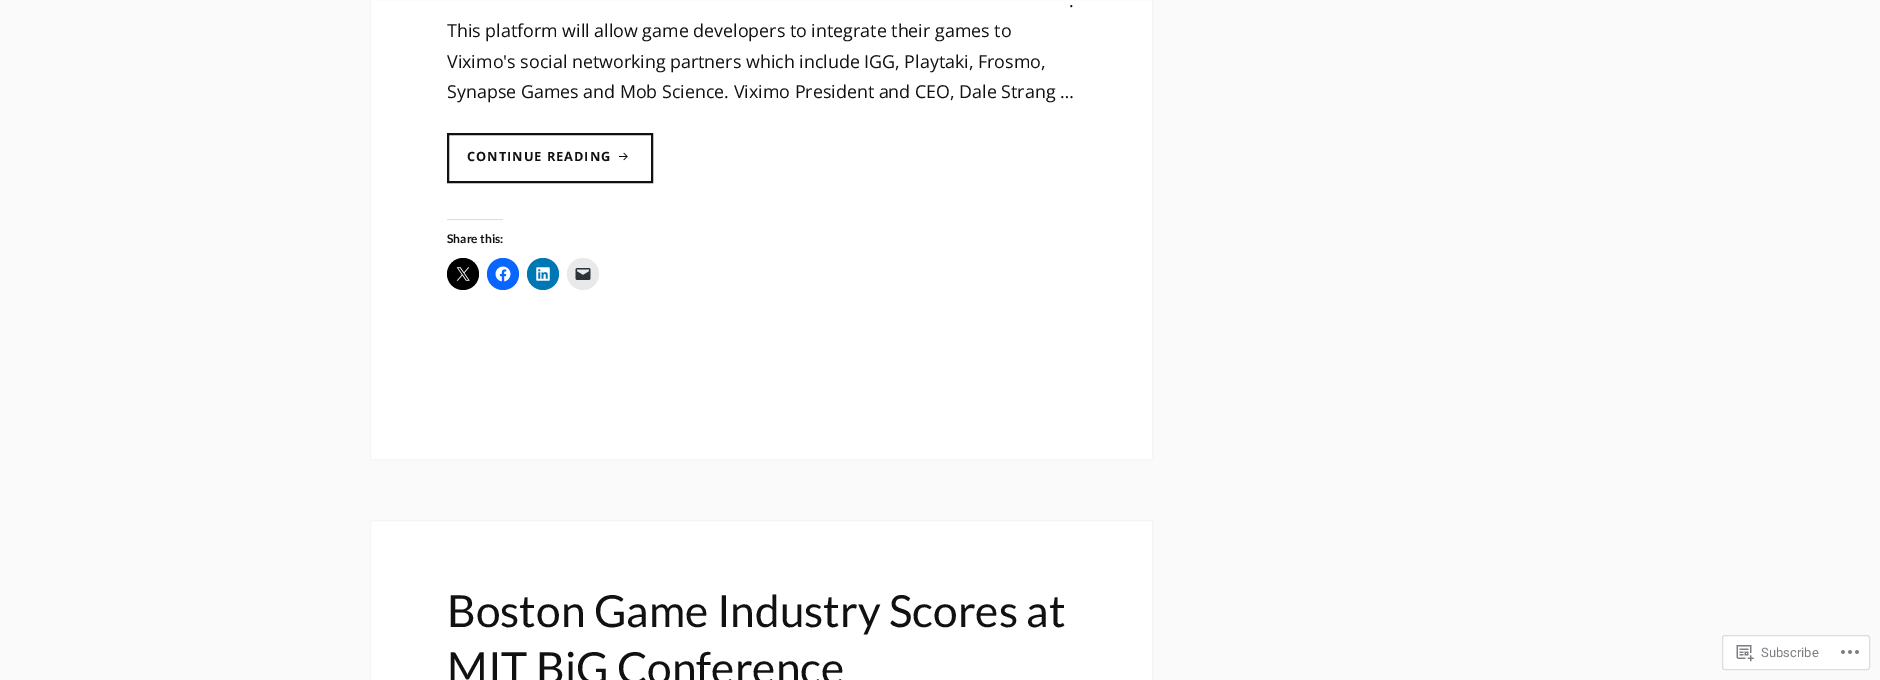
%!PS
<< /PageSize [1880 680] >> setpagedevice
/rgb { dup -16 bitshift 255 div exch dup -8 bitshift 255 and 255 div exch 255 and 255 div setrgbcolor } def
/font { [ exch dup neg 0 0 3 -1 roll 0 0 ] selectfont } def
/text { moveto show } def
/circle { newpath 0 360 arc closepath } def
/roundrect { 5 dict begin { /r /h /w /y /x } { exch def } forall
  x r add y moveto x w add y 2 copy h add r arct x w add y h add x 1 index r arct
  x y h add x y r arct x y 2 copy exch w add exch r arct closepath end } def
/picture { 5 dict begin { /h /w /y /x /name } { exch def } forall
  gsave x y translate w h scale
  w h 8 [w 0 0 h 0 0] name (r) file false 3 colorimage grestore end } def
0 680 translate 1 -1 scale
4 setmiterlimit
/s1 { /OpenSans-Regular 17.85 font 16#111111 rgb } def
/s2 { /Lato-Bold 12 font 16#111111 rgb } def
/s3 { /Lato-Regular 44.25 font 16#111111 rgb } def
/s4 { /Roboto-Regular 13 font 16#7B7F84 rgb } def
16#FAFAFA rgb
0 0 1880 680 rectfill
16#FFFFFF rgb
370.5 -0.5 moveto 1152.5 -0.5 lineto 1152.5 459.5 lineto 370.5 459.5 lineto closepath gsave fill grestore
16#F5F5F5 rgb
stroke
s1
(.) 1069 7 text
(This platform will allow game developers to integrate their games to) 447 37 text
(Viximo's social networking partners which include IGG, Playtaki, Frosmo,) 447 68 text
(Synapse Games and Mob Science. Viximo President and CEO, Dale Strang …) 447 98 text
2 setlinewidth
448 134 204 48 rectstroke
/OpenSans-Bold 12.75 font
467 161 moveto 1 0 (CONTINUE READING) ashow
(pic1.raw) 619 152 9 9 picture
16#DCDCDE rgb
447 219 56 1 rectfill
s2
(Share this:) 447 243 text
16#000000 rgb
463 274 16 circle fill
(pic2.raw) 456 267 14 14 picture
16#0866FF rgb
503 274 16 circle fill
(pic3.raw) 495 266 16 16 picture
16#0077B5 rgb
543 274 16 circle fill
(pic4.raw) 536 267 14 14 picture
16#E9E9E9 rgb
583 274 16 circle fill
(pic5.raw) 575 268 16 12 picture
16#FFFFFF rgb
370.5 520.5 moveto 1152.5 520.5 lineto 1152.5 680.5 lineto 370.5 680.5 lineto closepath gsave fill grestore
16#F5F5F5 rgb
1 setlinewidth
stroke
s3
(Boston Game Industry Scores at) 447 627 text
(MIT BiG Conference) 447 684 text
16#FFFFFF rgb
1722.5 635.5 147 34 2.5 roundrect gsave fill grestore
16#DDDDDF rgb
stroke
(pic6.raw) 1736 645 18 17 picture
s4
(Subscribe) 1761 657 text
(pic7.raw) 1841 650 18 4 picture
showpage
